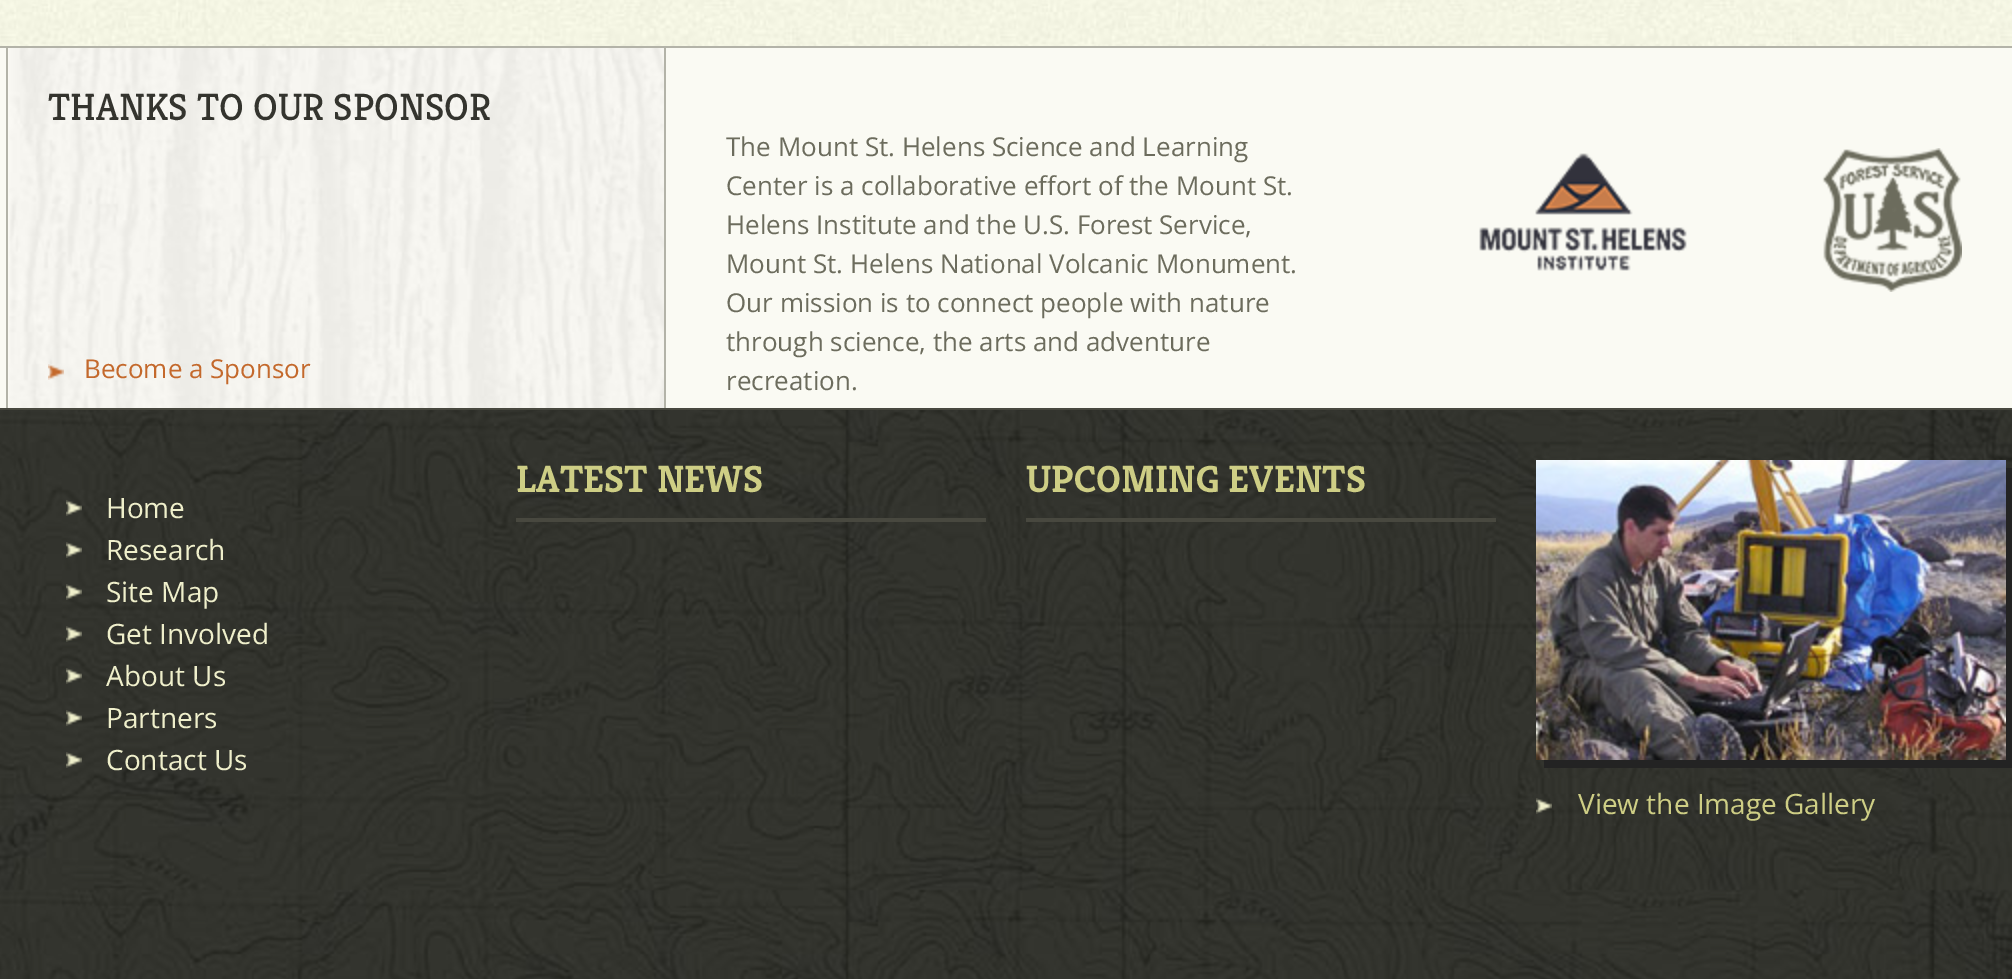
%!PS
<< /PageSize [2012 979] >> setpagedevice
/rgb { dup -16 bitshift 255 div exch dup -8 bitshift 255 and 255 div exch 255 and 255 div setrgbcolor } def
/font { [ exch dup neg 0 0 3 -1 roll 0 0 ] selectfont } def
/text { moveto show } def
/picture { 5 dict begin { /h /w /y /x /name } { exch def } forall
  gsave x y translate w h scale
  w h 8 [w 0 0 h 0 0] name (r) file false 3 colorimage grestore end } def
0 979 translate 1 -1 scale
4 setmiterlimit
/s1 { /Kreon-Regular 38 font 16#34342E rgb } def
/s2 { /OpenSans-Regular 26 font 16#C4692C rgb } def
/s3 { /OpenSans-Regular 26 font 16#6C6C5D rgb } def
/s4 { /Kreon-Bold 38 font 16#CECE85 rgb } def
/s5 { /OpenSans-Regular 28 font 16#EFEFCB rgb } def
/s6 { /OpenSans-Regular 28 font 16#CECE85 rgb } def
16#FFFFFF rgb
0 0 2012 979 rectfill
(pic1.raw) 0 0 2012 46 picture
16#FAFAF3 rgb
0 48 2012 360 rectfill
16#B3B3A8 rgb
0 46 2012 2 rectfill
(pic2.raw) 9 48 655 360 picture
664 48 2 360 rectfill
6 48 2 360 rectfill
s1
(THANKS TO OUR SPONSOR) 48 120 text
(pic3.raw) 48 364 16 16 picture
s2
(Become a Sponsor) 84 378 text
s3
(The Mount St. Helens Science and Learning) 726 156 text
(Center is a collaborative effort of the Mount St.) 726 195 text
(Helens Institute and the U.S. Forest Service,) 726 234 text
(Mount St. Helens National Volcanic Monument.) 726 273 text
(Our mission is to connect people with nature) 726 312 text
(through science, the arts and adventure) 726 351 text
(recreation.) 726 390 text
(pic4.raw) 1479 153 208 118 picture
(pic5.raw) 1822 148 140 144 picture
(pic6.raw) 0 410 2012 569 picture
16#48483F rgb
0 408 2012 2 rectfill
516 518 470 4 rectfill
s4
(LATEST NEWS) 516 492 text
16#48483F rgb
1026 518 470 4 rectfill
s4
(UPCOMING EVENTS) 1026 492 text
(pic7.raw) 66 500 16 16 picture
s5
(Home) 106 518 text
(pic8.raw) 66 542 16 16 picture
(Research) 106 560 text
(pic9.raw) 66 584 16 16 picture
(Site Map) 106 602 text
(pic10.raw) 66 626 16 16 picture
(Get Involved) 106 644 text
(pic11.raw) 66 668 16 16 picture
(About Us) 106 686 text
(pic12.raw) 66 710 16 16 picture
(Partners) 106 728 text
(pic13.raw) 66 752 16 16 picture
(Contact Us) 106 770 text
16#232323 rgb
1544 760 moveto 1544 768 lineto 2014 768 lineto 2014 468 lineto 2006 468 lineto 2006 760 lineto closepath fill
(pic14.raw) 1536 460 470 300 picture
(pic15.raw) 1536 798 16 16 picture
s6
(View the Image Gallery) 1578 814 text
showpage
